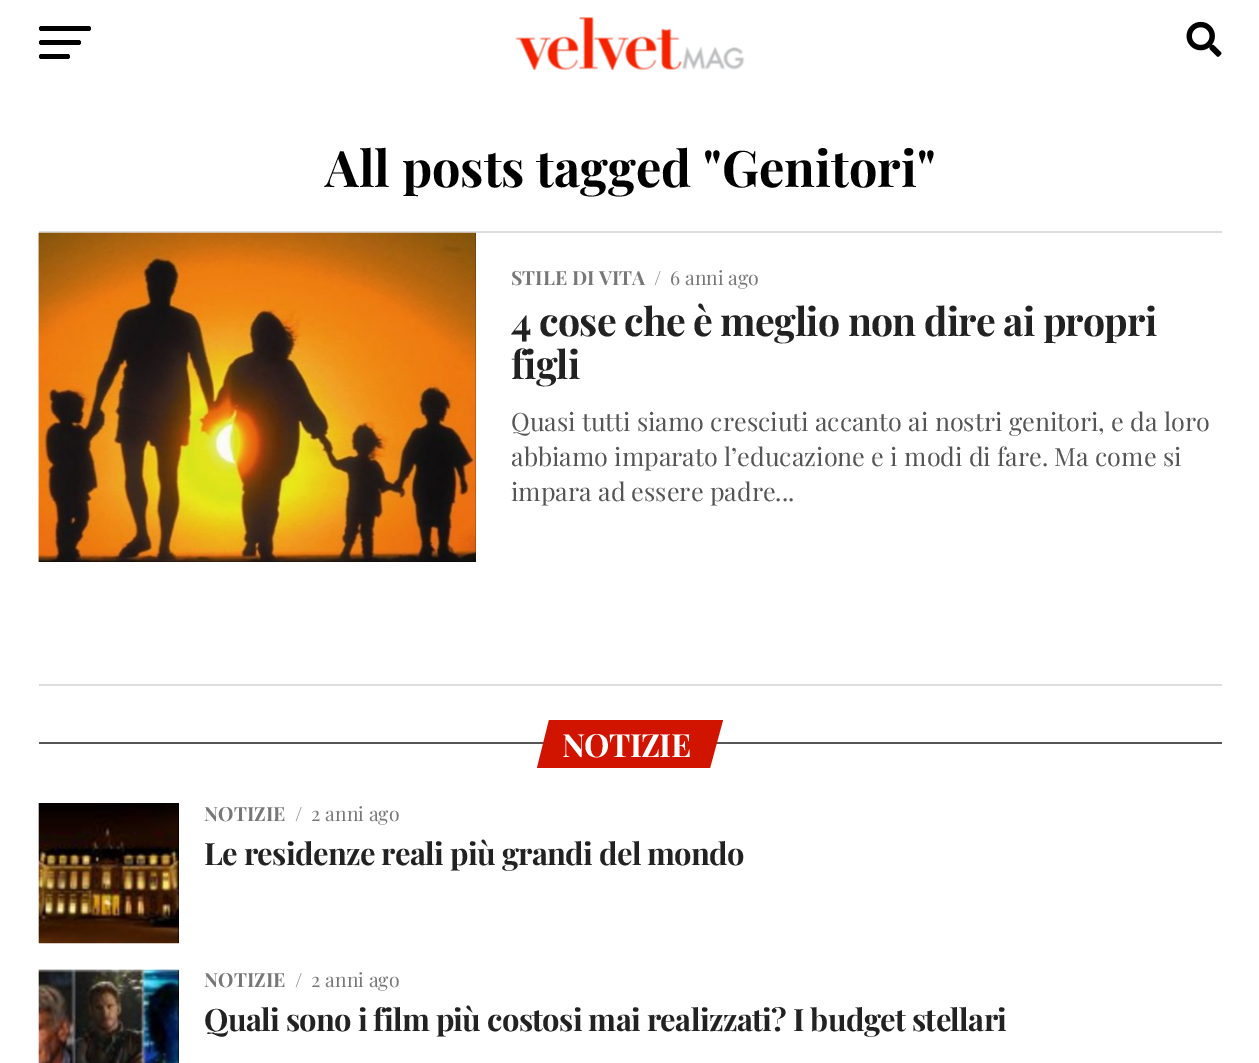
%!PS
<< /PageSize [1259 1063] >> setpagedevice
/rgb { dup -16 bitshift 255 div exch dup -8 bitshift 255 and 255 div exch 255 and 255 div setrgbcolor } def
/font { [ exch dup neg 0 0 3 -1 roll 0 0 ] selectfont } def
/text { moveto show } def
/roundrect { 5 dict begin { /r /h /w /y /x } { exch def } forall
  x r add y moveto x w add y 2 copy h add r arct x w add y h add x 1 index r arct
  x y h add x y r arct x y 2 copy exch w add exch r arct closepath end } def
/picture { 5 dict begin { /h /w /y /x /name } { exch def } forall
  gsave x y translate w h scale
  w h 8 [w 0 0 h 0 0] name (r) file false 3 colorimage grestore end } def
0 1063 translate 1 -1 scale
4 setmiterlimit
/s1 { /PlayfairDisplay-Bold 50.4 font 16#000000 rgb } def
/s2 { /PlayfairDisplay-Bold 19.5 font 16#777777 rgb } def
/s3 { /PlayfairDisplay-Regular 19.5 font 16#777777 rgb } def
/s4 { /PlayfairDisplay-Regular 25.2 font 16#555555 rgb } def
16#FFFFFF rgb
0 0 1259 1063 rectfill
16#000000 rgb
39 26 52 5 2.5 roundrect fill
39 40 42 5 2.5 roundrect fill
39 54 31 5 2.5 roundrect fill
(pic1.raw) 515 17 230 53 picture
(pic2.raw) 1186 21 36 36 picture
s1
(All posts tagged "Genitori") 325 187 text
16#DDDDDD rgb
39 231 1183 2 rectfill
16#000000 rgb
39 233 437 329 rectfill
(pic3.raw) 38 232 438 330 picture
s2
(STILE DI VITA) 511 285 text
s3
(/) 654 285 text
(6 anni ago) 670 285 text
/PlayfairDisplay-Bold 39.25 font
16#222222 rgb
511 336 moveto -0.8 0 (4 cose che è meglio non dire ai propri) ashow
511 379 moveto -0.8 0 (figli) ashow
s4
(Quasi tutti siamo cresciuti accanto ai nostri genitori, e da loro) 511 431 text
(abbiamo imparato l’educazione e i modi di fare. Ma come si) 511 466 text
(impara ad essere padre...) 511 501 text
16#DDDDDD rgb
39 684 1183 2 rectfill
16#555555 rgb
39 742 1183 2 rectfill
16#D11400 rgb
549 720 moveto 723 720 lineto 710 768 lineto 537 768 lineto closepath fill
/PlayfairDisplay-Bold 32 font
16#FFFFFF rgb
562 757 moveto -0.75 0 (NOTIZIE) ashow
16#000000 rgb
177 803 2 140 rectfill
(pic4.raw) 38 803 141 141 picture
s2
(NOTIZIE) 204 821 text
s3
(/) 295 821 text
(2 anni ago) 311 821 text
/PlayfairDisplay-Bold 30.8 font
16#222222 rgb
204 865 moveto -0.62 0 (Le residenze reali più grandi del mondo) ashow
16#000000 rgb
39 970 140 93 rectfill
(pic5.raw) 38 969 141 94 picture
s2
(NOTIZIE) 204 987 text
s3
(/) 295 987 text
(2 anni ago) 311 987 text
/PlayfairDisplay-Bold 30.8 font
16#222222 rgb
204 1031 moveto -0.62 0 (Quali sono i film più costosi mai realizzati? I budget stellari) ashow
showpage
